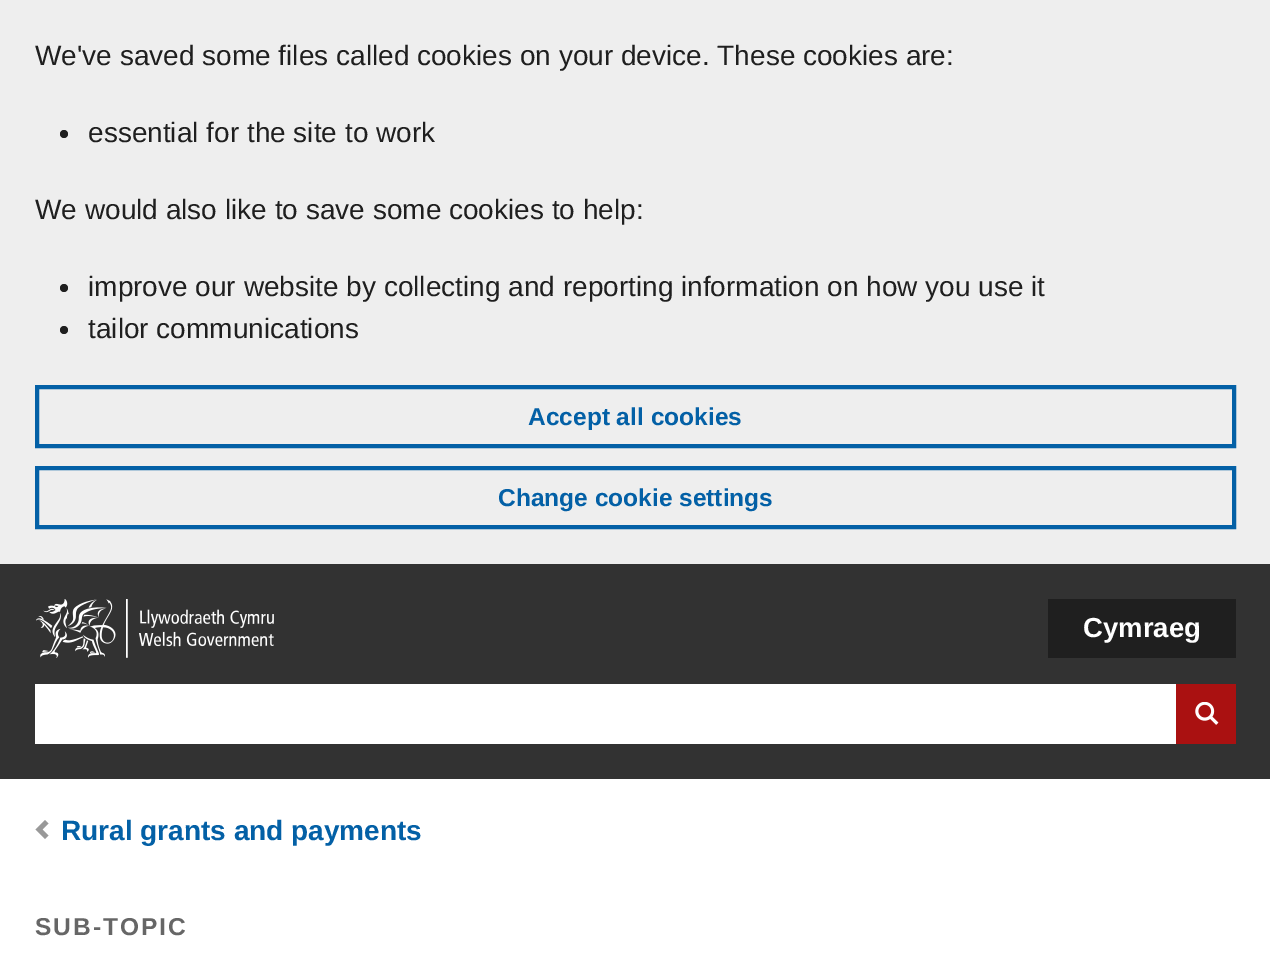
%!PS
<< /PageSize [1270 976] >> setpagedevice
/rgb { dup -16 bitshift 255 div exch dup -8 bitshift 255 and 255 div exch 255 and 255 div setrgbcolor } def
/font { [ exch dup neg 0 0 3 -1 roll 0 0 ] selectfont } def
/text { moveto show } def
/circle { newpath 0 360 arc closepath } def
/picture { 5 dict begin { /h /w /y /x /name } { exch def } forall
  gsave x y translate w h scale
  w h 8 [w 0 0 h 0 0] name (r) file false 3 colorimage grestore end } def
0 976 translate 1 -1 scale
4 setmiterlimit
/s1 { /LiberationSans-Regular 28 font 16#1F1F1F rgb } def
/s2 { /LiberationSans-Bold 24.5 font 16#0360A6 rgb } def
/s3 { /LiberationSans-Bold 27.5 font 16#FFFFFF rgb } def
/s4 { /LiberationSans-Bold 28 font 16#0360A6 rgb } def
16#EEEEEE rgb
0 0 1270 976 rectfill
s1
(We've saved some files called cookies on your device. These cookies are:) 35 65 text
64 134 4 circle fill
(essential for the site to work) 88 142 text
(We would also like to save some cookies to help:) 35 219 text
64 288 4 circle fill
(improve our website by collecting and reporting information on how you use it) 88 296 text
64 330 4 circle fill
(tailor communications) 88 338 text
16#0360A6 rgb
4 setlinewidth
37 387 1197 59 rectstroke
s2
(Accept all cookies) 528 425 text
37 468 1197 59 rectstroke
(Change cookie settings) 498 506 text
16#323232 rgb
0 564 1270 215 rectfill
(pic1.raw) 36 599 238 59 picture
16#1F1F1F rgb
1048 599 188 59 rectfill
s3
(Cymraeg) 1083 637 text
35 684 1141 60 rectfill
16#AA1111 rgb
1176 684 60 60 rectfill
(pic2.raw) 1195 702 24 23 picture
16#FFFFFF rgb
0 779 1270 197 rectfill
16#999999 rgb
35.5 829.5 moveto 45 839 lineto 48.5 835.5 lineto 42.5 829.5 lineto 48.5 823.5 lineto 45 820 lineto closepath fill
s4
(Rural grants and payments) 61 840 text
/LiberationSans-Bold 24.5 font
16#666666 rgb
35 935 moveto 2 0 (SUB-TOPIC) ashow
showpage
